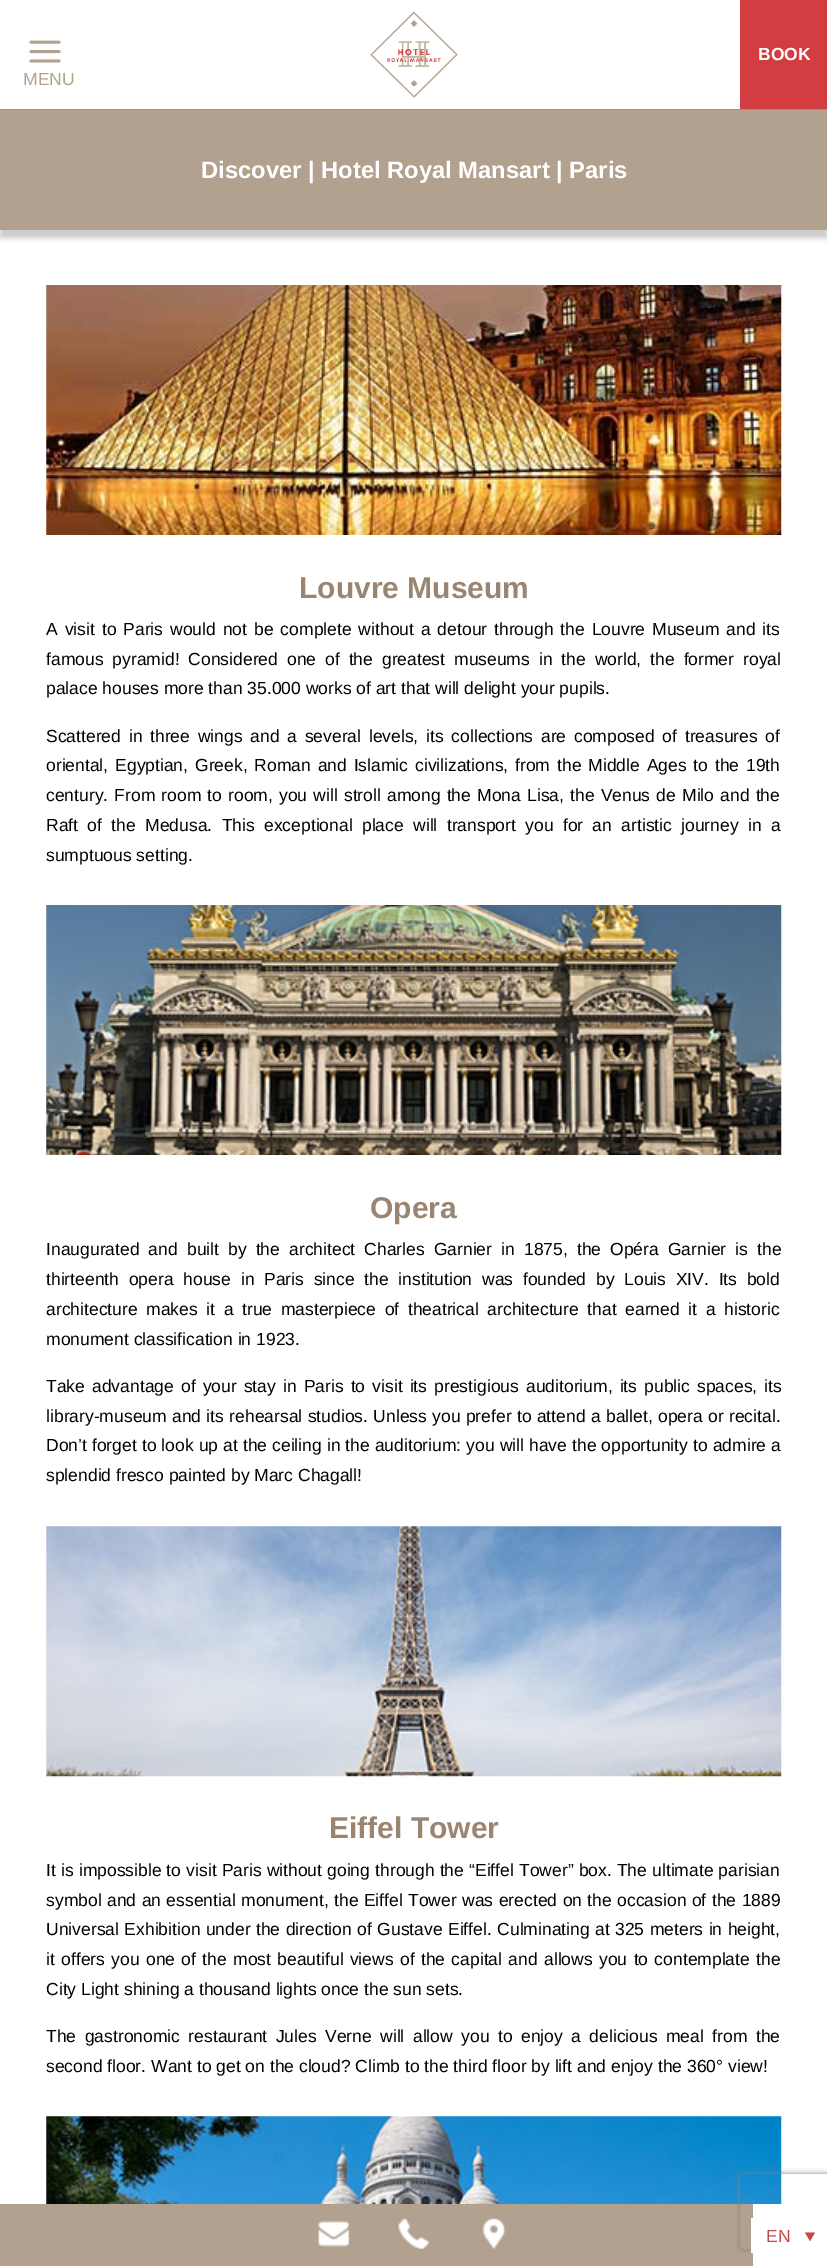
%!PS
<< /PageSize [827 2266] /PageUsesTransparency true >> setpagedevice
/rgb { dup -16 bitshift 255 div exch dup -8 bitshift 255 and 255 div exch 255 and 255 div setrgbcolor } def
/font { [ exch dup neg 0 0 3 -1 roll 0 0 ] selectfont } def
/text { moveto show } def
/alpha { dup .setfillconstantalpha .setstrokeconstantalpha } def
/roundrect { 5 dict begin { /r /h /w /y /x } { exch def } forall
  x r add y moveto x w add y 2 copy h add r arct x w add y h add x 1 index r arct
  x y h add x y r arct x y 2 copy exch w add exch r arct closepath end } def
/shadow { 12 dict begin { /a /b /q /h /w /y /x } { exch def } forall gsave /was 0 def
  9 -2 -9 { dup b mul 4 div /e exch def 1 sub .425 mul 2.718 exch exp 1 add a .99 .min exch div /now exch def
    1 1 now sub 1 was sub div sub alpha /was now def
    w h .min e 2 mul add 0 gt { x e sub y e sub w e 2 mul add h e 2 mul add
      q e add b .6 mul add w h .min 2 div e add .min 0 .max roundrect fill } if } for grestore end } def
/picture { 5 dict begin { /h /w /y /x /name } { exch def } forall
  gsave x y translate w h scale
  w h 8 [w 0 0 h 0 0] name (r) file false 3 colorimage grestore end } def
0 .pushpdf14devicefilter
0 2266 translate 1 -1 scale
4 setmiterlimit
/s1 { /LiberationSans-Bold 17.5 font 16#FFFFFF rgb } def
/s2 { /LiberationSans-Regular 17.5 font 16#B2A18F rgb } def
/s3 { /LiberationSans-Bold 23.75 font 16#FFFFFF rgb } def
/s4 { /LiberationSans-Bold 30 font 16#9A8572 rgb } def
/s5 { /LiberationSans-Regular 17.5 font 16#000000 rgb } def
/s6 { /LiberationSans-Regular 17.5 font 16#C34846 rgb } def
16#FFFFFF rgb
0 0 827 2266 rectfill
16#000000 rgb
0 115 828 123 0 2.5 0.2 shadow
16#A09181 rgb
0 109 moveto 0 110 lineto 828 110 lineto 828 1 lineto 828 109 lineto closepath fill
(pic1.raw) 370 11 88 87 picture
16#D33C40 rgb
740 0 87 109 rectfill
s1
(BOOK) 758 60 text
(pic2.raw) 29 40 32 23 picture
s2
(MENU) 23 85 text
0 110 827 120 rectfill
s3
(Discover | Hotel Royal Mansart | Paris) 201 178 text
(pic3.raw) 46 285 736 250 picture
s4
(Louvre Museum) 299 598 text
/LiberationSans-Regular 17.5 font
16#000000 rgb
46 635 moveto 2.1 0 32 (A visit to Paris would not be complete without a detour through the Louvre Museum and its) widthshow
46 665 moveto 4.1 0 32 (famous pyramid! Considered one of the greatest museums in the world, the former royal) widthshow
(palace houses more than 35.000 works of art that will delight your pupils.) 46 694 text
46 742 moveto 2.9 0 32 (Scattered in three wings and a several levels, its collections are composed of treasures of) widthshow
46 771 moveto 2 0 32 (oriental, Egyptian, Greek, Roman and Islamic civilizations, from the Middle Ages to the 19th) widthshow
46 801 moveto 1.3 0 32 (century. From room to room, you will stroll among the Mona Lisa, the Venus de Milo and the) widthshow
46 831 moveto 4.5 0 32 (Raft of the Medusa. This exceptional place will transport you for an artistic journey in a) widthshow
(sumptuous setting.) 46 861 text
(pic4.raw) 46 905 736 250 picture
s4
(Opera) 370 1218 text
/LiberationSans-Regular 17.5 font
16#000000 rgb
46 1255 moveto 4.25 0 32 (Inaugurated and built by the architect Charles Garnier in 1875, the Opéra Garnier is the) widthshow
46 1285 moveto 4.9 0 32 (thirteenth opera house in Paris since the institution was founded by Louis XIV. Its bold) widthshow
46 1315 moveto 3.75 0 32 (architecture makes it a true masterpiece of theatrical architecture that earned it a historic) widthshow
(monument classification in 1923.) 46 1345 text
46 1392 moveto 2.25 0 32 (Take advantage of your stay in Paris to visit its prestigious auditorium, its public spaces, its) widthshow
46 1422 moveto 0.5 0 32 (library-museum and its rehearsal studios. Unless you prefer to attend a ballet, opera or recital.) widthshow
46 1451 moveto 0.2 0 32 (Don’t forget to look up at the ceiling in the auditorium: you will have the opportunity to admire a) widthshow
(splendid fresco painted by Marc Chagall!) 46 1481 text
(pic5.raw) 46 1526 736 251 picture
s4
(Eiffel Tower) 329 1838 text
/LiberationSans-Regular 17.5 font
16#000000 rgb
46 1876 moveto 0.3 0 32 (It is impossible to visit Paris without going through the “Eiffel Tower” box. The ultimate parisian) widthshow
46 1906 moveto 0.6 0 32 (symbol and an essential monument, the Eiffel Tower was erected on the occasion of the 1889) widthshow
46 1935 moveto 0.6 0 32 (Universal Exhibition under the direction of Gustave Eiffel. Culminating at 325 meters in height,) widthshow
46 1965 moveto 1.5 0 32 (it offers you one of the most beautiful views of the capital and allows you to contemplate the) widthshow
(City Light shining a thousand lights once the sun sets.) 46 1995 text
46 2042 moveto 3.6 0 32 (The gastronomic restaurant Jules Verne will allow you to enjoy a delicious meal from the) widthshow
(second floor. Want to get on the cloud? Climb to the third floor by lift and enjoy the 360° view!) 46 2072 text
(pic6.raw) 46 2116 736 88 picture
16#B2A18F rgb
0 2204 753 62 rectfill
(pic7.raw) 318 2220 32 27 picture
(pic8.raw) 398 2218 32 31 picture
(pic9.raw) 482 2218 24 31 picture
gsave
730 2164 moveto 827 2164 lineto 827 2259 lineto 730 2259 lineto closepath 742.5 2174 moveto 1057.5 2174 lineto 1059 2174 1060 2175 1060 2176.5 curveto 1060 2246.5 lineto 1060 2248 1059 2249 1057.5 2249 curveto 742.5 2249 lineto 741 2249 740 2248 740 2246.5 curveto 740 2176.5 lineto 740 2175 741 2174 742.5 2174 curveto closepath eoclip newpath
16#808080 rgb
740 2174 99 75 2.5 3 1 shadow
grestore
16#FFFFFF rgb
753 2248 74 7 rectfill
751 2218 2 35 rectfill
s6
(EN) 766 2242 text
805 2232.5 moveto 815 2232.5 lineto 810 2241 lineto closepath fill
.poppdf14devicefilter showpage
